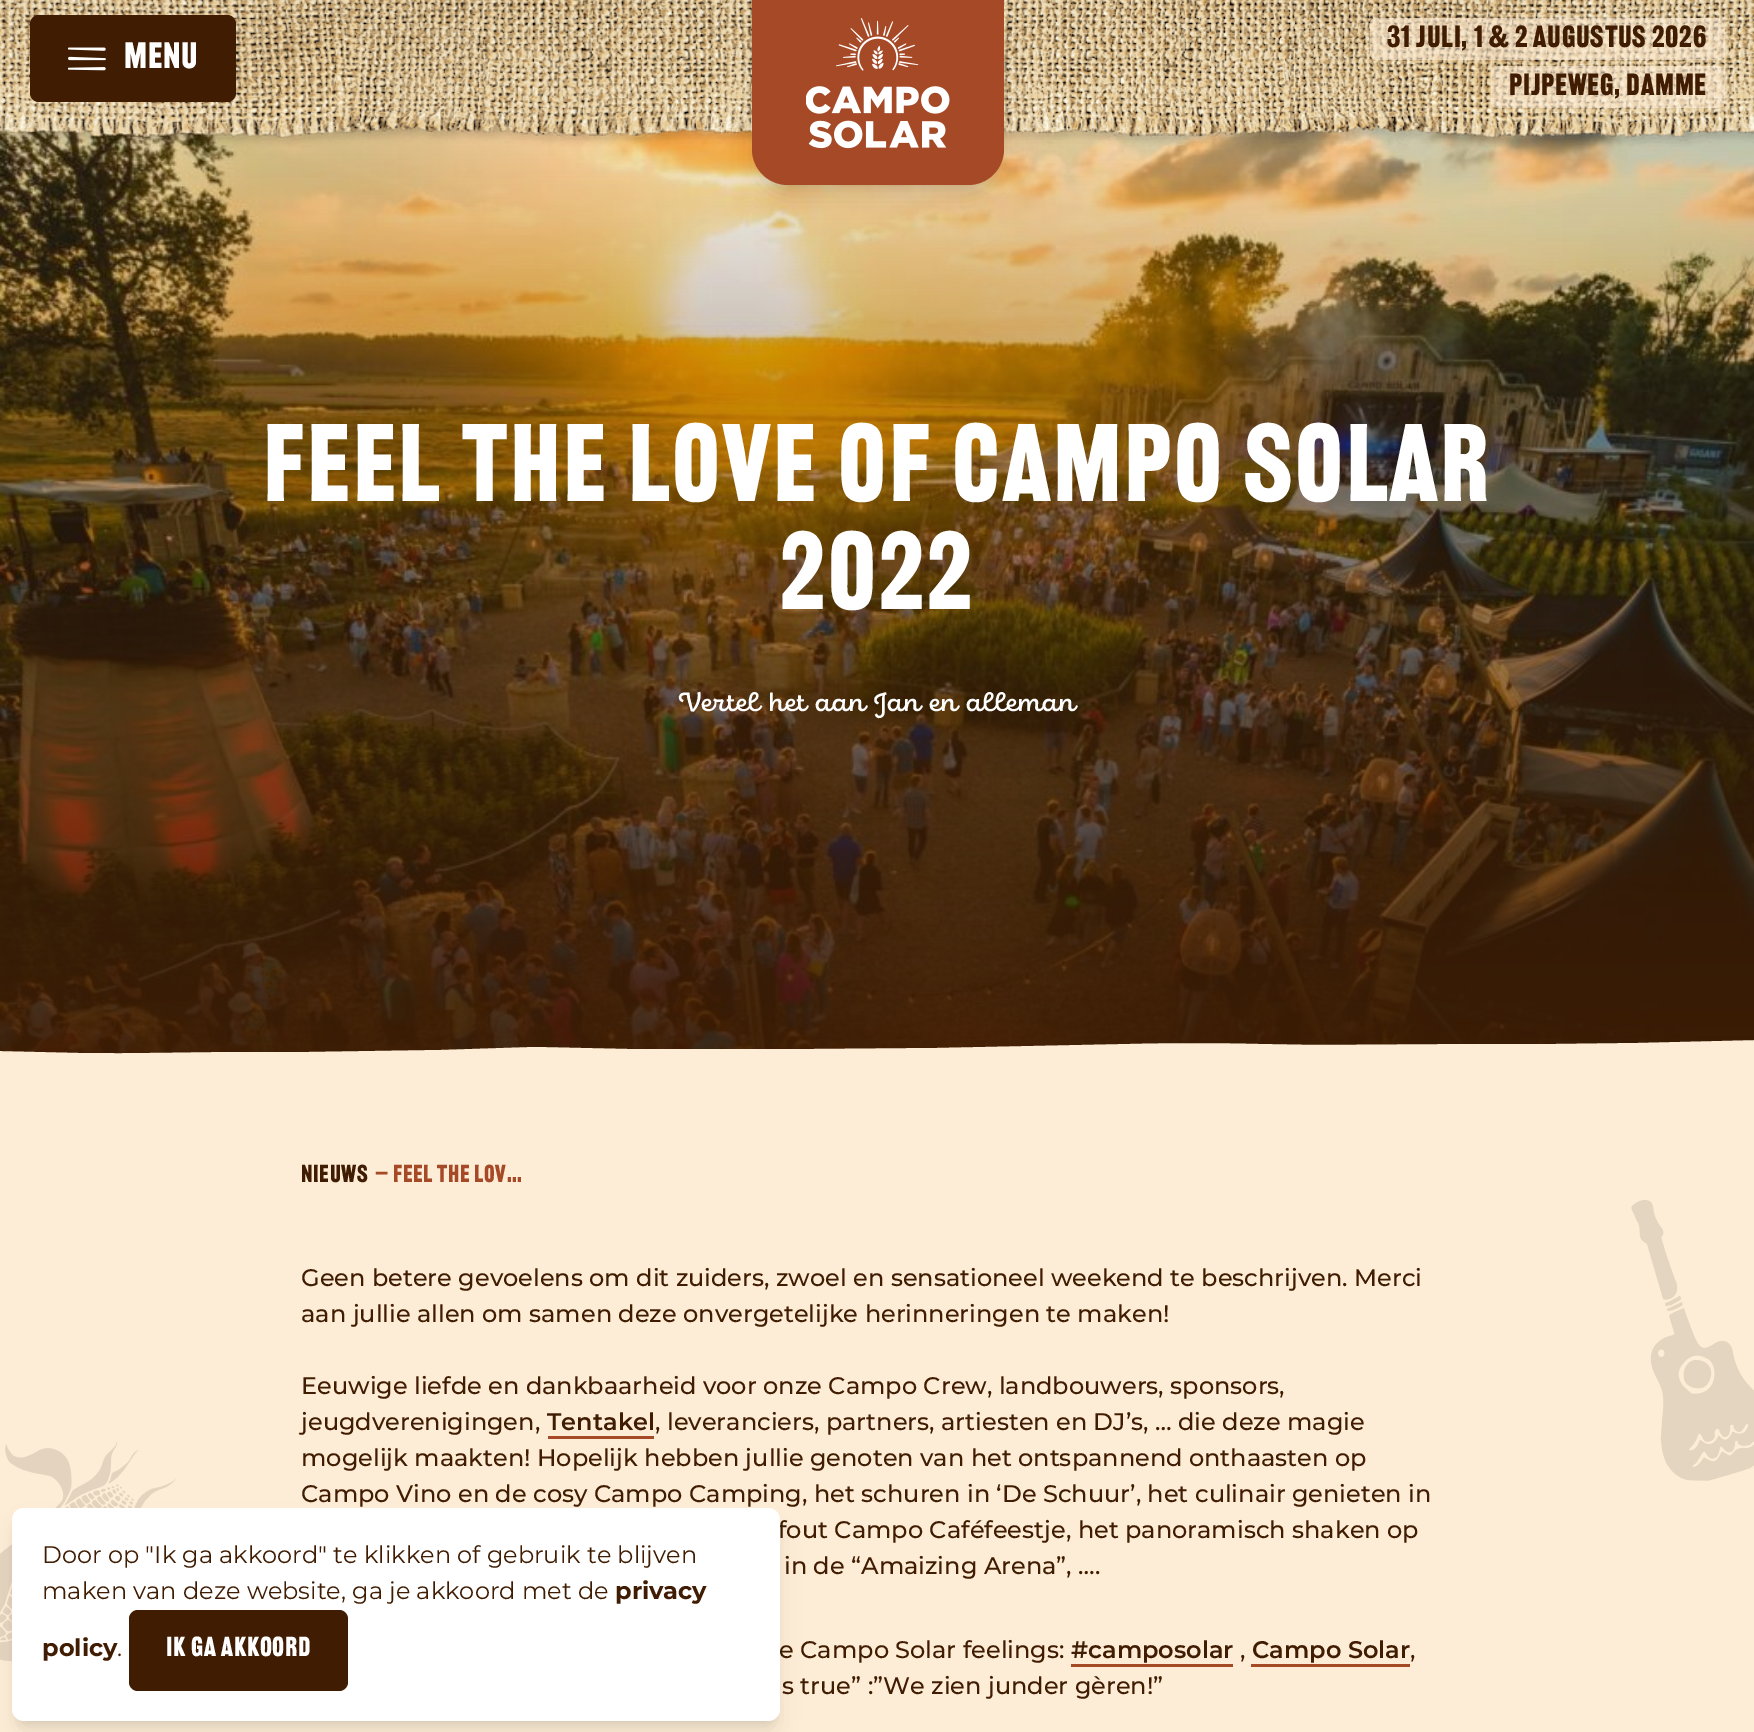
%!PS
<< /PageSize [1754 1732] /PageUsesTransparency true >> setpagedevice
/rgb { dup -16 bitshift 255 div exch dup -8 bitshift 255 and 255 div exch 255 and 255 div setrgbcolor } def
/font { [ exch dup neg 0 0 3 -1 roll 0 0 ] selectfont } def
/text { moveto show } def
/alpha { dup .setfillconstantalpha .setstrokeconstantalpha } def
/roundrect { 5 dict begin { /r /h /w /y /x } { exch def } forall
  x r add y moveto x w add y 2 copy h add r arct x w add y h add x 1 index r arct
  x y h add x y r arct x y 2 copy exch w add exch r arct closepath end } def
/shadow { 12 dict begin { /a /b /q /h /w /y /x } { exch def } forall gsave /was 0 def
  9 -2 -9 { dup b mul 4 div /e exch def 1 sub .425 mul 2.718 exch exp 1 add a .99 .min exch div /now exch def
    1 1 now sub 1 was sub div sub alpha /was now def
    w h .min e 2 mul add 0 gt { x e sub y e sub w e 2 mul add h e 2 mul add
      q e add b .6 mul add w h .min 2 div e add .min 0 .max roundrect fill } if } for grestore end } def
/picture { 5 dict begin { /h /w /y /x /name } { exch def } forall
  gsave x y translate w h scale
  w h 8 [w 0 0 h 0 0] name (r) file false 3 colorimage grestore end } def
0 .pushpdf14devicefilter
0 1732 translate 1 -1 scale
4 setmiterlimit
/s1 { /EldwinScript-SemiBold 27 font 16#FFFFFF rgb } def
/s2 { /Montserrat-Medium 24 font 16#401D02 rgb } def
/s3 { /Montserrat-SemiBold 24 font 16#401D02 rgb } def
/s4 { /Montserrat-Regular 24 font 16#401D02 rgb } def
/s5 { /Montserrat-Bold 24 font 16#401D02 rgb } def
16#FEEDD6 rgb
0 0 1754 1732 rectfill
(pic4.raw) 0 84 1754 970 picture
(pic1.raw) 0 0 1754 147 picture
16#401D02 rgb
30 15 206 87 9 roundrect fill
(pic2.raw) 68 47 38 24 picture
/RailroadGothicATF-Regular 36 font
16#FFFFFF rgb
124 68 moveto 0.75 0 (MENU) ashow
16#000000 rgb
758 12 240 173 30 4.5 0.1 shadow
756 20 243 175 32 11 0.1 shadow
16#A54927 rgb
752 0 moveto 1004 0 lineto 1004 149 lineto 1004 169 988 185 968 185 curveto 788 185 lineto 768 185 752 169 752 149 curveto closepath fill
(pic3.raw) 806 18 144 131 picture
0.6 alpha
16#FEEDD6 rgb
1370 18 355 42 6 roundrect fill
/RailroadGothicATF-Regular 30 font
1 alpha
16#401D02 rgb
1387 47 moveto 0.75 0 (31 JULI, 1 & 2 AUGUSTUS 2026) ashow
0.6 alpha
16#FEEDD6 rgb
1491 66 234 42 6 roundrect fill
1 alpha
16#401D02 rgb
1509 95 moveto 0.75 0 (PIJPEWEG, DAMME) ashow
/RailroadGothicATF-Regular 108 font
16#FFFFFF rgb
263 501 moveto 2.7 0 (FEEL THE LOVE OF CAMPO SOLAR) ashow
780 609 moveto 2.7 0 (2022) ashow
s1
(Vertel het aan Jan en alleman) 679 711 text
gsave
0 1040 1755 22 rectclip
16#FEEDD6 rgb
-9 1051 moveto 78 1053 lineto 135 1054 192 1052 249 1052 curveto 309 1052 lineto 441 1050 lineto 535 1047 lineto 627 1049 lineto 814 1049 lineto 937 1048 lineto 1130 1044 lineto 1173 1043 1215 1043 1258 1044 curveto 1316 1045 lineto 1478 1044 lineto 1556 1044 lineto 1638 1043 lineto 1680 1042 1722 1041 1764 1040 curveto 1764 1068 lineto -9 1068 lineto closepath fill
grestore
/RailroadGothicATF-Regular 24 font
16#401D02 rgb
301 1182 moveto 0.6 0 (NIEUWS) ashow
16#A54927 rgb
375 1182 moveto 0.6 0 (— FEEL THE LOV...) ashow
s2
(Geen betere gevoelens om dit zuiders, zwoel en sensationeel weekend te beschrijven. Merci) 301 1286 text
(aan jullie allen om samen deze onvergetelijke herinneringen te maken!) 301 1322 text
(Eeuwige liefde en dankbaarheid voor onze Campo Crew, landbouwers, sponsors,) 301 1394 text
(jeugdverenigingen,) 301 1430 text
s3
(Tentakel) 547 1430 text
16#A54927 rgb
548 1436 106 3 rectfill
s2
(, leveranciers, partners, artiesten en DJ’s, … die deze magie) 655 1430 text
(mogelijk maakten! Hopelijk hebben jullie genoten van het ontspannend onthaasten op) 301 1466 text
(Campo Vino en de cosy Campo Camping, het schuren in ‘De Schuur’, het culinair genieten in) 301 1502 text
(fout Campo Caféfeestje, het panoramisch shaken op) 778 1538 text
(in de “Amaizing Arena”, ….) 784 1574 text
(e Campo Solar feelings:) 779 1658 text
s3
(#camposolar) 1071 1658 text
16#A54927 rgb
1071 1664 162 3 rectfill
s2
(,) 1240 1658 text
s3
(Campo Solar) 1252 1658 text
16#A54927 rgb
1251 1664 159 3 rectfill
s2
(,) 1410 1658 text
(s true” :”We zien junder gèren!”) 782 1694 text
(pic5.raw) 1631 1200 123 281 picture
(pic6.raw) 0 1441 177 221 picture
16#000000 rgb
18 1520 756 201 6 4.5 0.1 shadow
17 1527 759 204 8 11 0.1 shadow
16#FFFFFF rgb
12 1508 768 213 12 roundrect fill
s4
(Door op "Ik ga akkoord" te klikken of gebruik te blijven) 42 1563 text
(maken van deze website, ga je akkoord met de) 42 1599 text
s5
(privacy) 615 1599 text
(policy) 42 1656 text
s4
(.) 117 1656 text
129 1610 219 81 9 roundrect fill
/RailroadGothicATF-Regular 27 font
16#FFFFFF rgb
166 1656 moveto 0.75 0 (IK GA AKKOORD) ashow
.poppdf14devicefilter showpage
